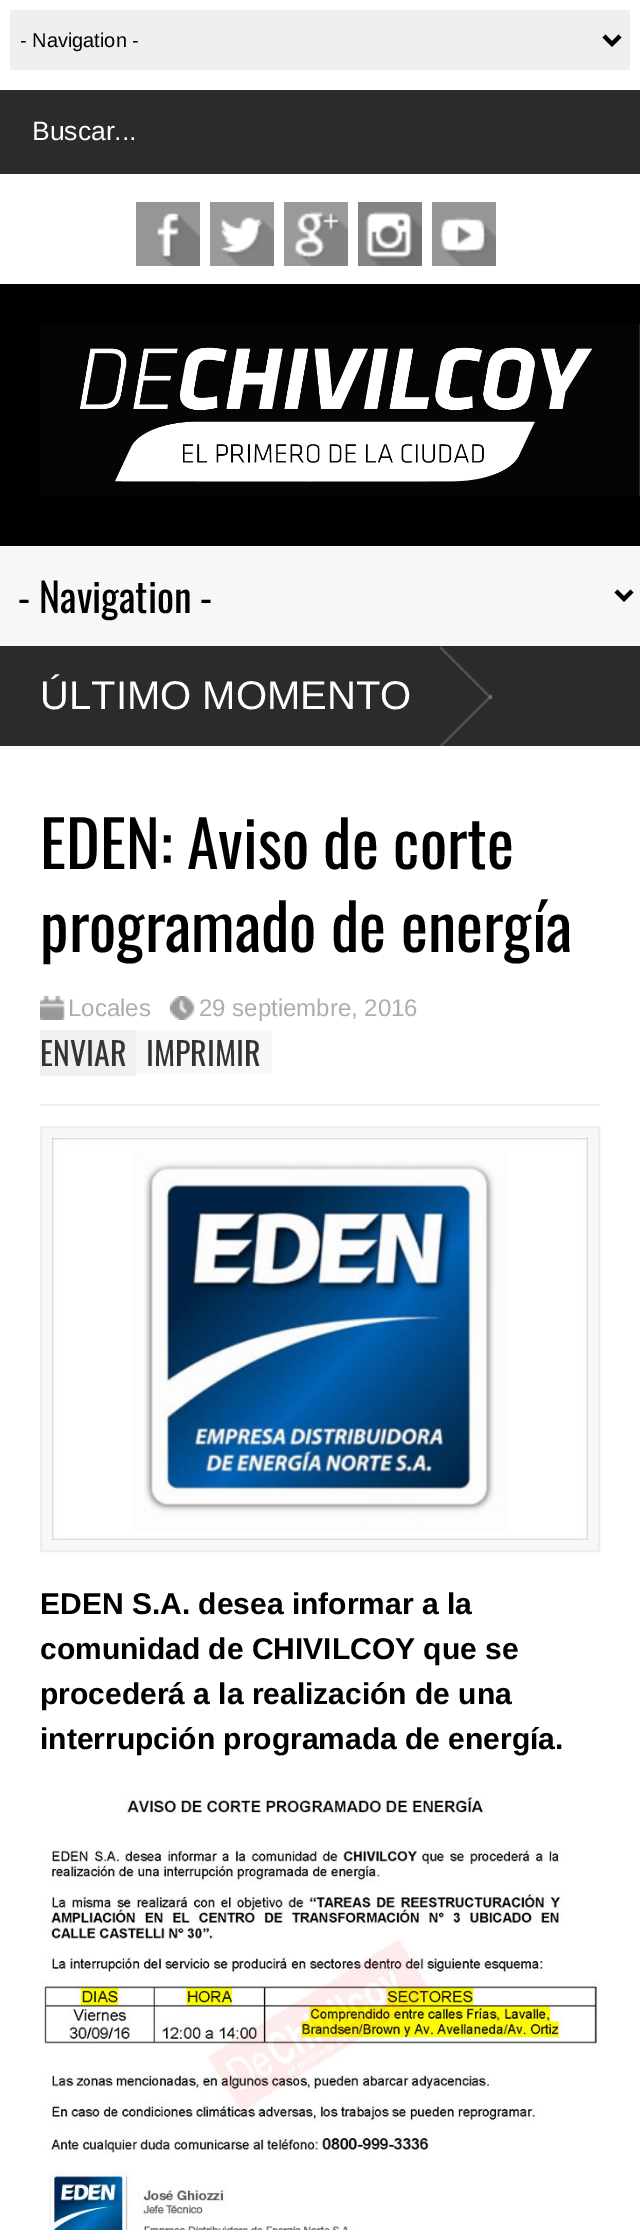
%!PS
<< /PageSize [640 2230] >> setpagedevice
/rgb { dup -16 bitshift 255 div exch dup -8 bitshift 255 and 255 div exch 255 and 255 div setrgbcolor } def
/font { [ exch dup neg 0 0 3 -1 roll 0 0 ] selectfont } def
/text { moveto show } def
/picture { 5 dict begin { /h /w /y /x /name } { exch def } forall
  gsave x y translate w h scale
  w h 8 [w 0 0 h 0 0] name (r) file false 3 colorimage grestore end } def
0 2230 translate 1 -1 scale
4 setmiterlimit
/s1 { /LiberationSans-Regular 20 font 16#000000 rgb } def
/s2 { /LiberationSans-Regular 26.5 font 16#FFFFFF rgb } def
/s3 { /Oswald-Regular 40 font 16#000000 rgb } def
/s4 { /LiberationSans-Regular 40 font 16#FFFFFF rgb } def
/s5 { /Oswald-Regular 64 font 16#000000 rgb } def
/s6 { /LiberationSans-Regular 24 font 16#ADADAD rgb } def
/s7 { /Oswald-Regular 32 font 16#333333 rgb } def
/s8 { /LiberationSans-Bold 30 font 16#000000 rgb } def
16#FFFFFF rgb
0 0 640 2230 rectfill
16#EFEFEF rgb
10 10 620 60 rectfill
16#000000 rgb
4 setlinewidth
604 36 moveto 612 44 lineto 620 36 lineto stroke
s1
(- Navigation -) 20 47 text
16#2B2B2B rgb
0 90 640 84 rectfill
s2
(Buscar...) 32 140 text
(pic1.raw) 136 202 64 64 picture
(pic2.raw) 210 202 64 64 picture
(pic3.raw) 284 202 64 64 picture
(pic4.raw) 358 202 64 64 picture
(pic5.raw) 432 202 64 64 picture
16#000000 rgb
0 284 640 262 rectfill
(pic6.raw) 40 324 600 172 picture
16#F7F7F7 rgb
0 546 640 100 rectfill
16#000000 rgb
616 591 moveto 624 599 lineto 632 591 lineto stroke
s3
(- Navigation -) 18 613 text
16#2B2B2B rgb
0 646 640 100 rectfill
(pic7.raw) 439 646 53 100 picture
s4
(ÚLTIMO MOMENTO) 40 709 text
s5
(EDEN: Aviso de corte) 40 869 text
(programado de energía) 40 952 text
16#EEEEEE rgb
40 1104 560 2 rectfill
(pic8.raw) 40 996 25 24 picture
s6
(Locales) 68 1016 text
(pic9.raw) 170 996 25 24 picture
(29 septiembre, 2016) 199 1016 text
16#F0F0F0 rgb
40 1030 96 46 rectfill
s7
(ENVIAR) 40 1066 text
16#F8F8F8 rgb
136 1030 136 44 rectfill
s7
(IMPRIMIR) 146 1066 text
16#F8F8F8 rgb
41 1127 moveto 599 1127 lineto 599 1551 lineto 41 1551 lineto closepath gsave fill grestore
16#EEEEEE rgb
2 setlinewidth
stroke
(pic10.raw) 52 1138 536 402 picture
s8
(EDEN S.A. desea informar a la) 40 1614 text
(comunidad de CHIVILCOY que se) 40 1659 text
(procederá a la realización de una) 40 1704 text
(interrupción programada de energía.) 40 1749 text
(pic11.raw) 40 1792 560 438 picture
showpage
